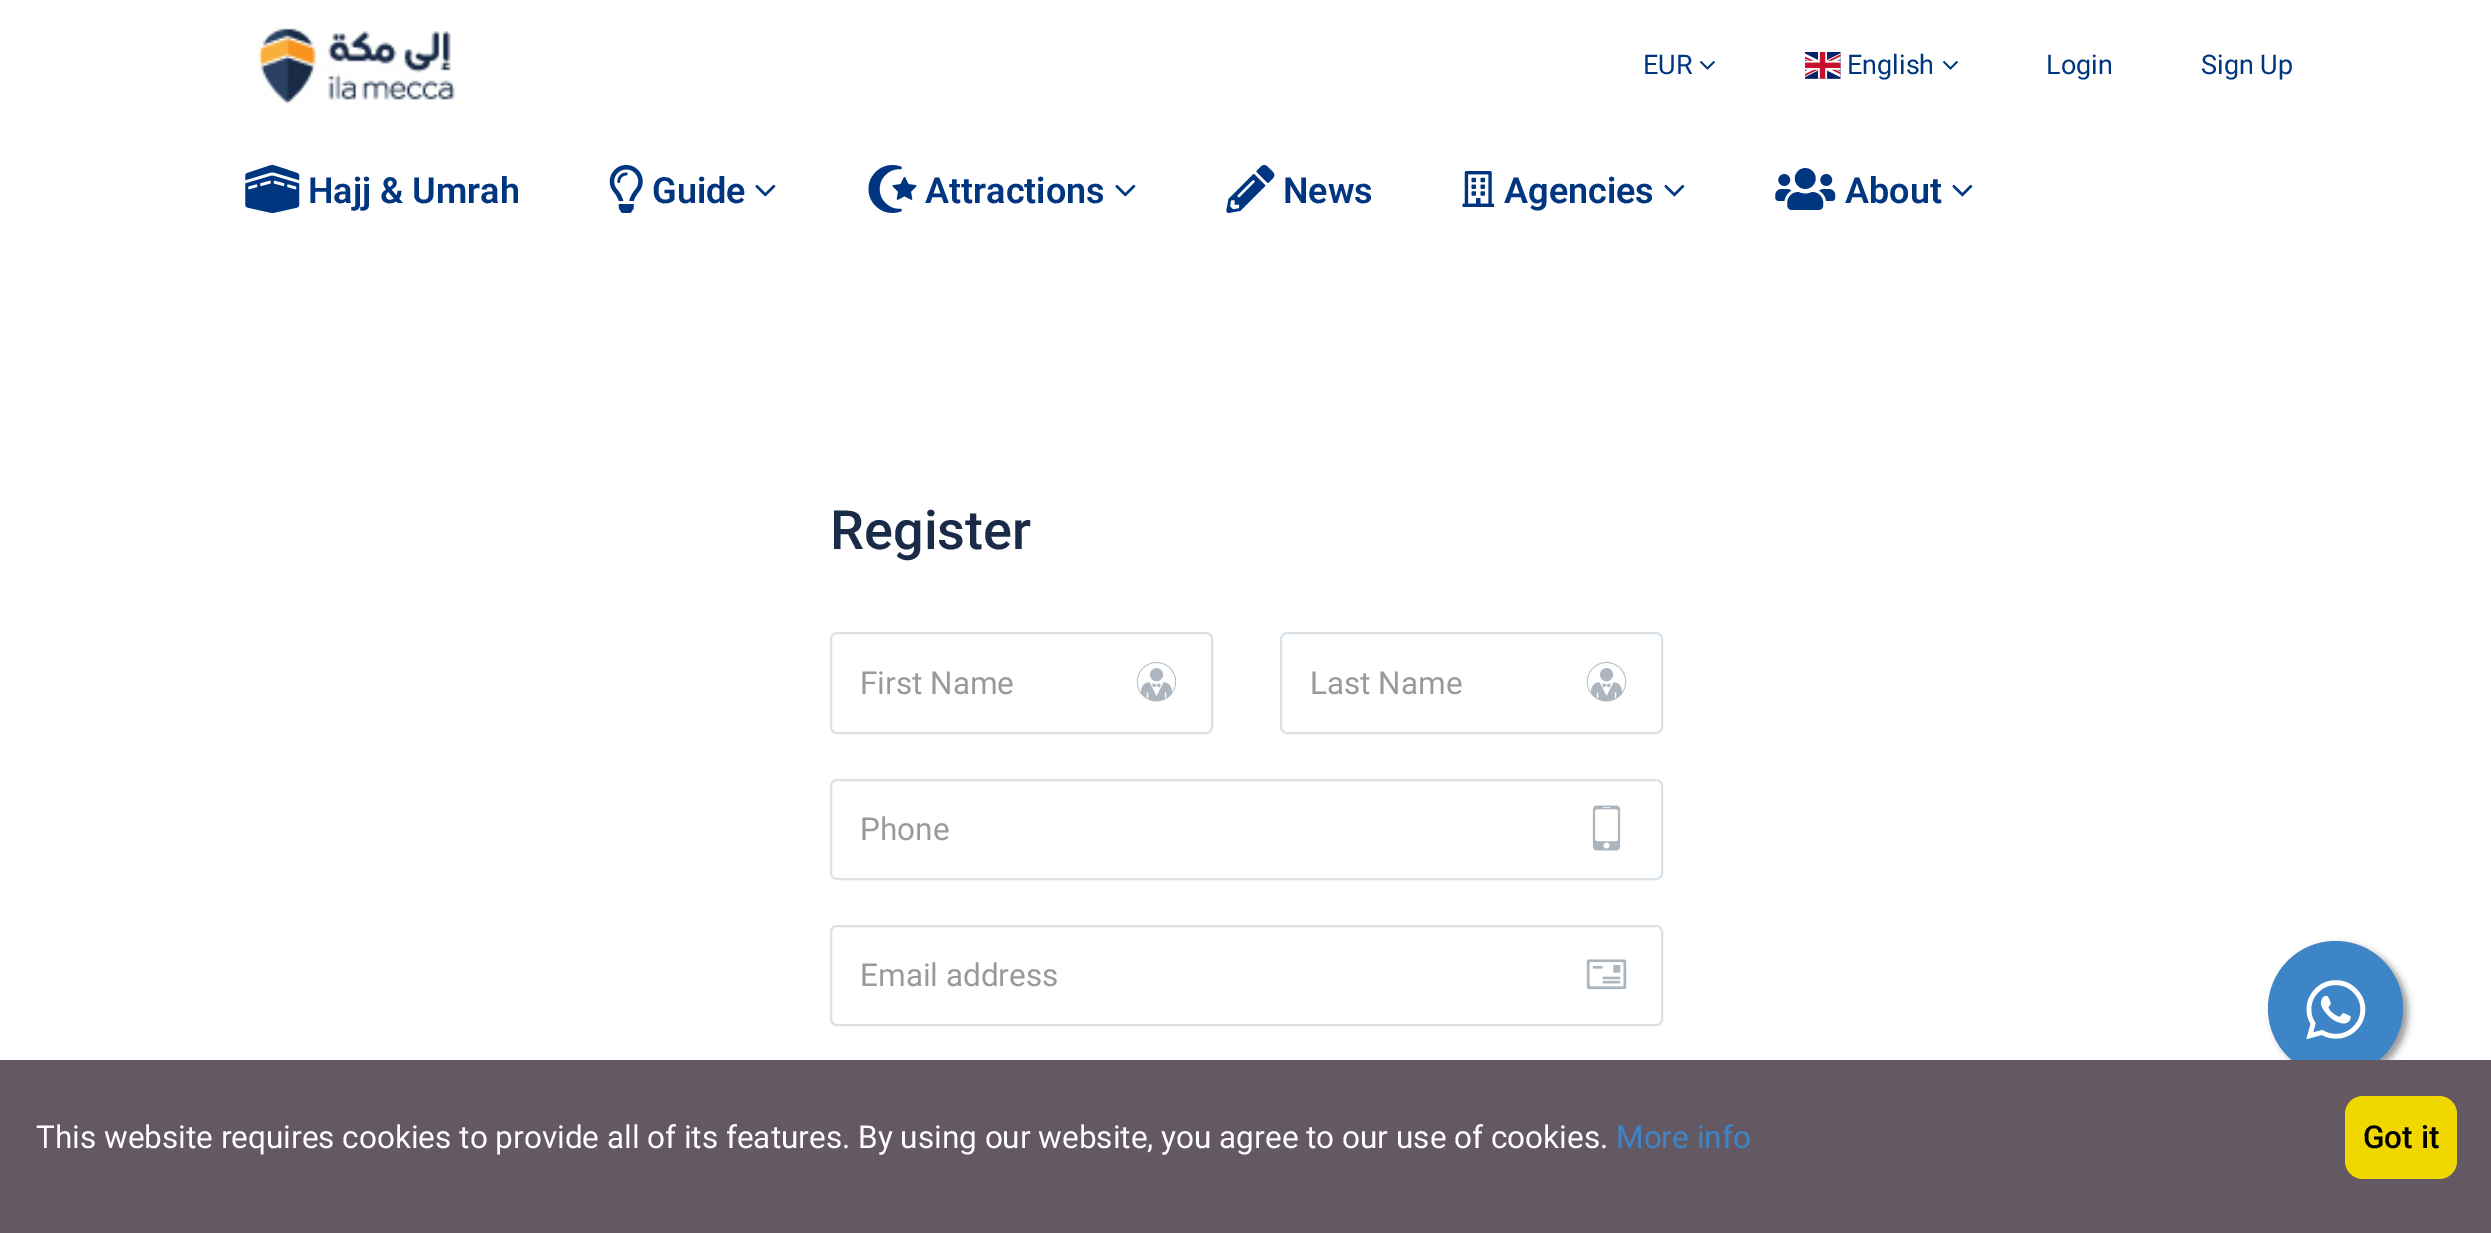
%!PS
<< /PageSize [2491 1233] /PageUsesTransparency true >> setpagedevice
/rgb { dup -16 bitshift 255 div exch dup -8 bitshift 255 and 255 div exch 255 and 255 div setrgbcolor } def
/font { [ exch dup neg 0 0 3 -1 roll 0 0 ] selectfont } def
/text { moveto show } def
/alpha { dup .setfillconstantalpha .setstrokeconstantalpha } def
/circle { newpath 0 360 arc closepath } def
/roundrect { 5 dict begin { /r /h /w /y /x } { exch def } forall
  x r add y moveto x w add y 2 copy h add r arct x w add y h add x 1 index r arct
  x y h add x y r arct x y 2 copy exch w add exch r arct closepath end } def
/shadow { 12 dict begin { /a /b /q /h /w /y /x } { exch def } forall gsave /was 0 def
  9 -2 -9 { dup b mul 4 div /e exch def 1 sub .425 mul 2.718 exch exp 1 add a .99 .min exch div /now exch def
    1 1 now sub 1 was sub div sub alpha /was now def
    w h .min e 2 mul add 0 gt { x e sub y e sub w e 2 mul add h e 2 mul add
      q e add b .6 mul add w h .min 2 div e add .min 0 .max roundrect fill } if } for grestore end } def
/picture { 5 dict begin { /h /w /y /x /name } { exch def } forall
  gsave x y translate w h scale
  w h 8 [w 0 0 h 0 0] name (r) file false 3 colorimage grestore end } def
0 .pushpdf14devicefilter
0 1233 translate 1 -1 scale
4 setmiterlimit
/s1 { /Roboto-Regular 27 font 16#003580 rgb } def
/s2 { /Roboto-SemiBold 36 font 16#003580 rgb } def
/s3 { /Roboto-Medium 54 font 16#1A2B48 rgb } def
/s4 { /Roboto-Regular 31.5 font 16#999999 rgb } def
/s5 { /Roboto-Regular 31.5 font 16#FFFFFF rgb } def
/s6 { /Roboto-Regular 31.5 font 16#3D85C6 rgb } def
/s7 { /Roboto-Medium 31.5 font 16#000000 rgb } def
16#FFFFFF rgb
0 0 2491 1233 rectfill
(pic1.raw) 258 28 198 77 picture
s1
(EUR) 1643 74 text
(pic2.raw) 1700 61 15 9 picture
(pic3.raw) 1805 52 36 27 picture
(English) 1847 74 text
(pic2.raw) 1943 61 15 9 picture
(Login) 2046 74 text
(Sign Up) 2201 74 text
(pic4.raw) 245 165 55 48 picture
s2
(Hajj & Umrah) 308 203 text
(pic5.raw) 609 165 34 48 picture
(Guide) 652 203 text
(pic6.raw) 755 184 21 13 picture
(pic7.raw) 868 165 49 48 picture
(Attractions) 925 203 text
(pic6.raw) 1115 184 21 13 picture
(pic8.raw) 1226 165 49 48 picture
(News) 1283 203 text
(pic9.raw) 1462 171 32 36 picture
(Agencies) 1504 203 text
(pic6.raw) 1664 184 21 13 picture
(pic10.raw) 1775 168 61 42 picture
(About) 1845 203 text
(pic6.raw) 1952 184 21 13 picture
s3
(Register) 830 549 text
16#DAE1E7 rgb
2 setlinewidth
831 633 381 100 6 roundrect stroke
s4
(First Name) 860 694 text
(pic11.raw) 1136 662 41 40 picture
16#DAE1E7 rgb
1281 633 381 100 6 roundrect stroke
s4
(Last Name) 1310 694 text
(pic11.raw) 1586 662 41 40 picture
16#DAE1E7 rgb
831 780 831 99 6 roundrect stroke
s4
(Phone) 860 840 text
(pic12.raw) 1592 805 29 46 picture
16#DAE1E7 rgb
831 926 831 99 6 roundrect stroke
s4
(Email address) 860 986 text
(pic13.raw) 1586 959 41 31 picture
2273 945 135 135 67.5 3.5 1 shadow
16#3D85C6 rgb
2335.5 1008.5 67.5 circle fill
16#645862 rgb
0 1060 2491 173 rectfill
s5
(This website requires cookies to provide all of its features. By using our website, you agree to our use of cookies.) 36 1148 text
s6
(More info) 1616 1148 text
16#F1D700 rgb
2345 1096 112 83 18 roundrect fill
s7
(Got it) 2363 1148 text
(pic14.raw) 2306 980 60 60 picture
.poppdf14devicefilter showpage
